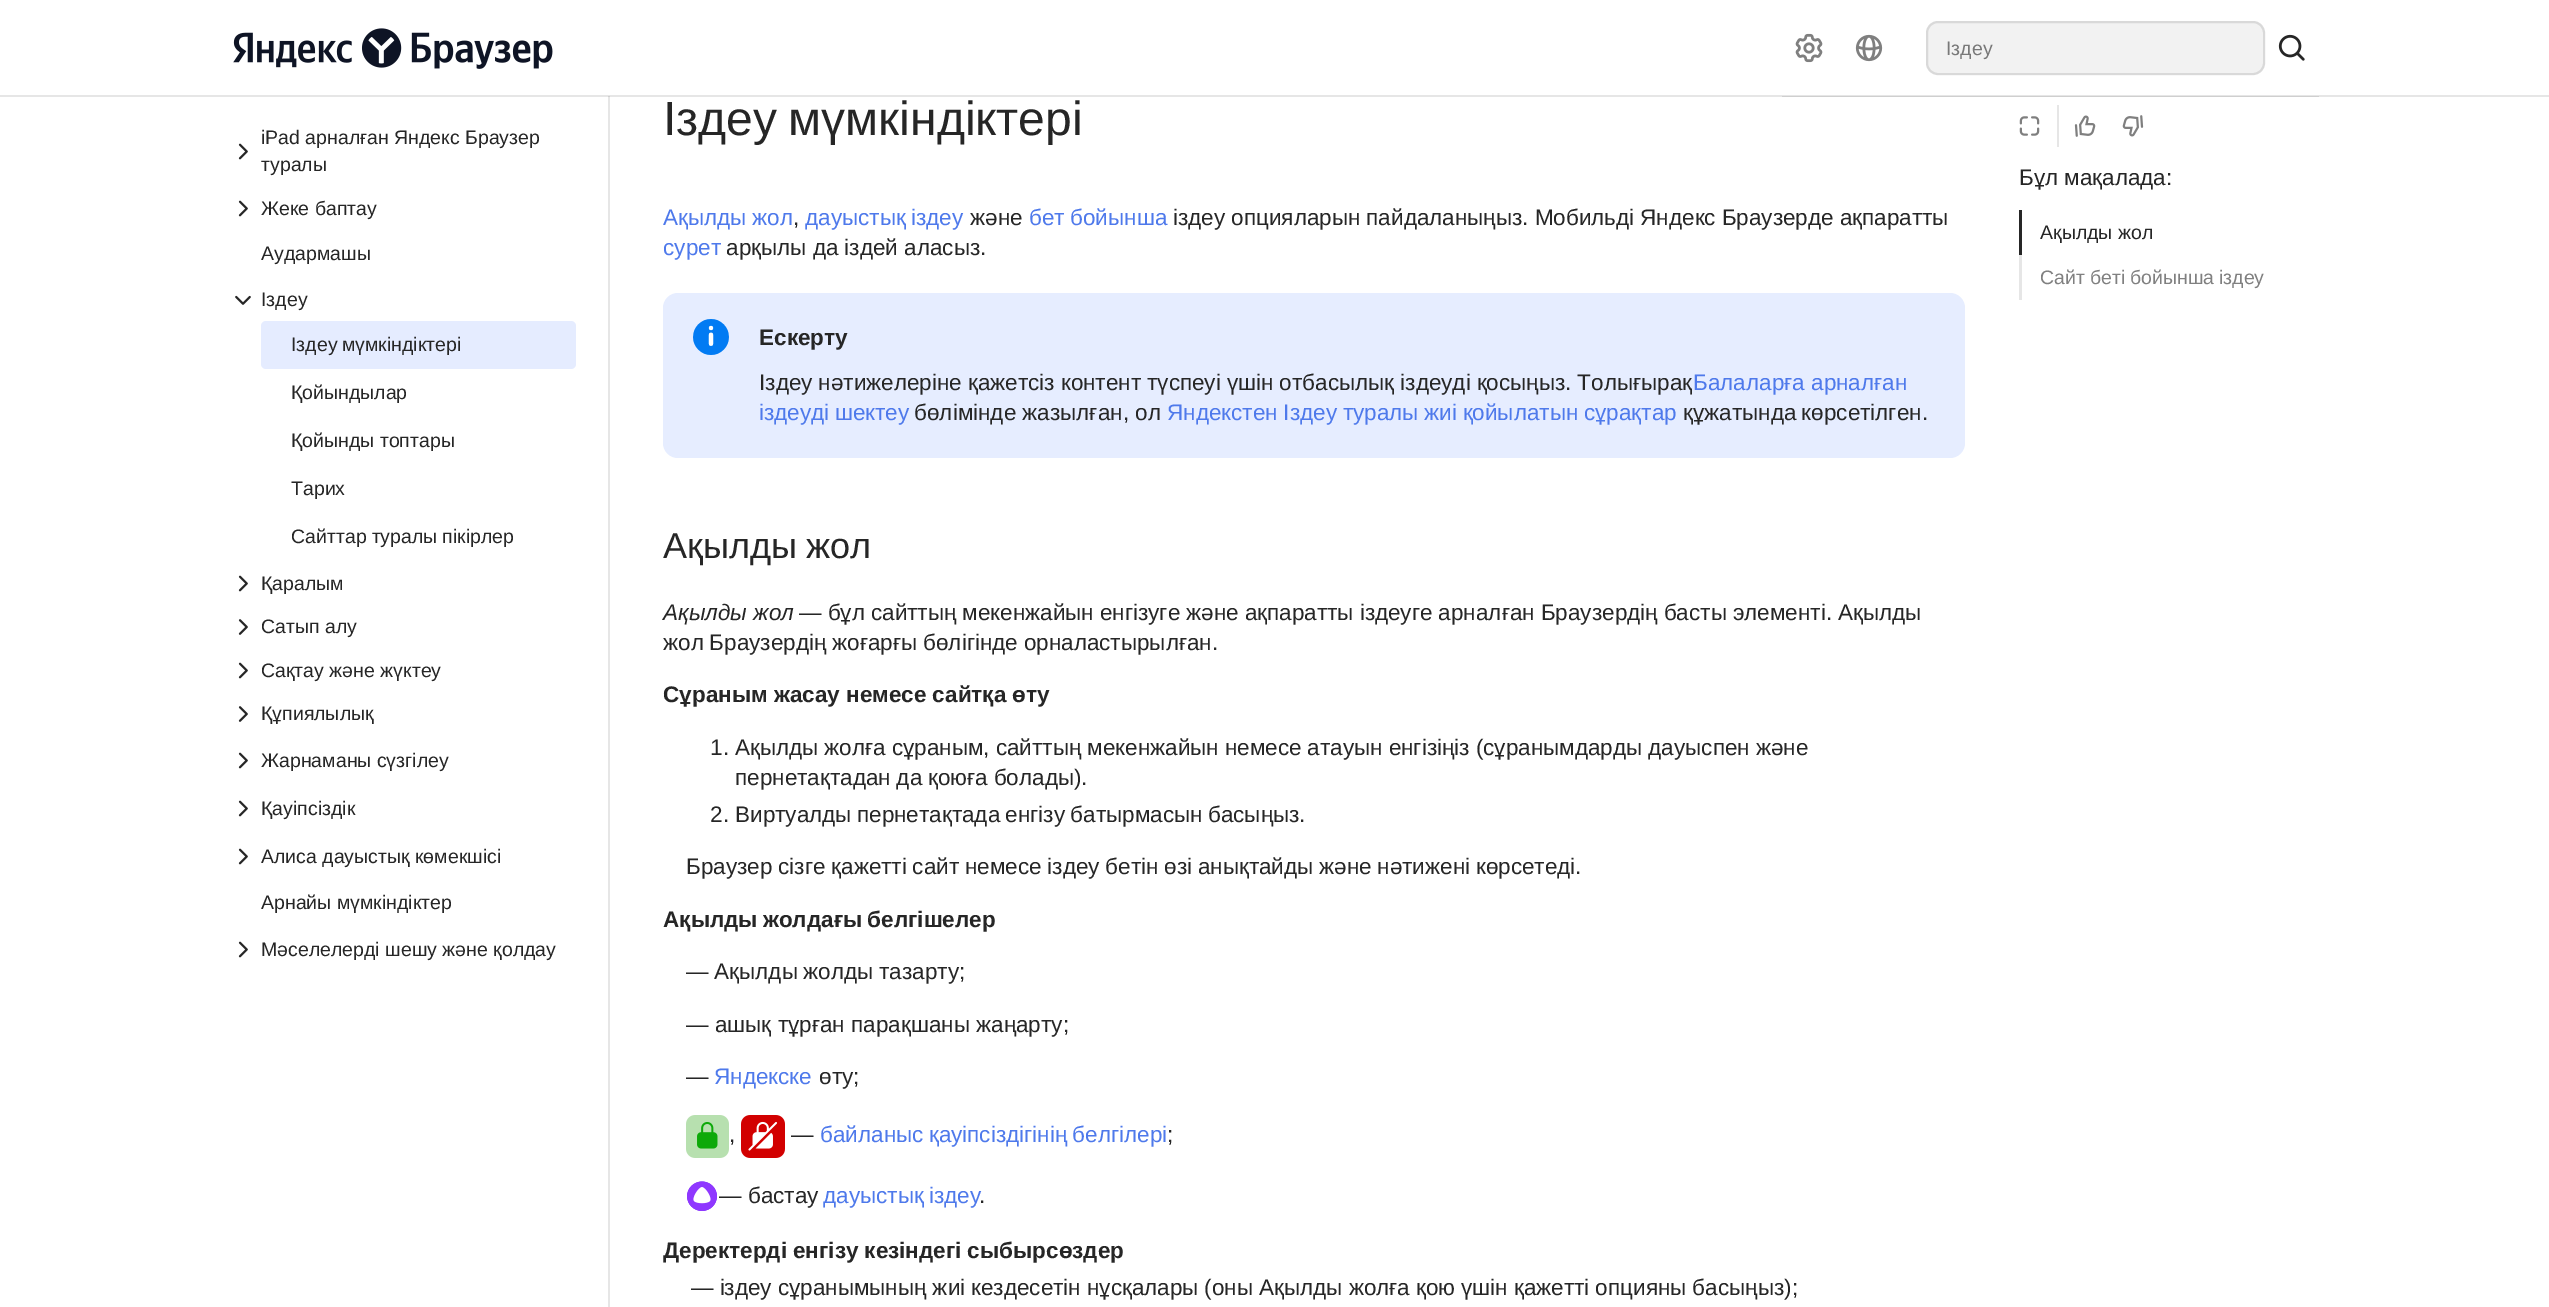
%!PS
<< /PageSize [2549 1307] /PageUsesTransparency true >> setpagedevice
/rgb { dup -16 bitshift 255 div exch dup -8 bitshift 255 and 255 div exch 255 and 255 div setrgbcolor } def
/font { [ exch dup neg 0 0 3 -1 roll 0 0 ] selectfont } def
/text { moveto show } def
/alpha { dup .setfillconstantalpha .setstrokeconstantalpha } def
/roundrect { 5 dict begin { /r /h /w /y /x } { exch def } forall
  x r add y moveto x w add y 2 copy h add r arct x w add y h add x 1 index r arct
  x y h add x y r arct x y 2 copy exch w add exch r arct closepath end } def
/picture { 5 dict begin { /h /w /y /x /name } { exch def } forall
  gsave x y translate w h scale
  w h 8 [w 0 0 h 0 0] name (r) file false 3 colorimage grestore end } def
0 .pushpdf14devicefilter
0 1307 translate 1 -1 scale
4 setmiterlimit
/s1 { /LiberationSans-Regular 19.5 font 16#797979 rgb } def
/s2 { /LiberationSans-Regular 19.5 font 16#262626 rgb } def
/s3 { /LiberationSans-Regular 22.5 font 16#262626 rgb } def
/s4 { /LiberationSans-Regular 22.5 font 16#4E79EB rgb } def
/s5 { /LiberationSans-Bold 22.5 font 16#262626 rgb } def
/s6 { /LiberationSans-Italic 22.5 font 16#262626 rgb } def
16#FFFFFF rgb
0 0 2549 1307 rectfill
16#E6E6E6 rgb
0 95 2549 2 rectfill
16#CFCFCF rgb
1782 96 537 1 rectfill
(pic1.raw) 233 28 320 41 picture
(pic2.raw) 1795 33 28 30 picture
(pic3.raw) 1855 34 28 28 picture
16#F2F2F2 rgb
1926 21 339 54 12 roundrect fill
0.1 alpha
16#000000 rgb
2 setlinewidth
1927 22 337 52 11 roundrect stroke
1 alpha
s1
(Іздеу) 1946 55 text
(pic4.raw) 2278 34 27 27 picture
16#E6E6E6 rgb
608 96 2 1211 rectfill
16#CFCFCF rgb
608 96 2 1 rectfill
(pic5.raw) 238 143 10 17 picture
s2
(iPad арналған Яндекс Браузер) 261 144 text
(туралы) 261 171 text
(pic5.raw) 238 200 10 17 picture
(Жеке баптау) 261 215 text
(Аудармашы) 261 260 text
(pic6.raw) 235 295 16 10 picture
(Іздеу) 261 306 text
16#E5ECFF rgb
261 321 315 48 5 roundrect fill
16#262626 rgb
291 351 moveto -1 0 32 (Іздеу мүмкіндіктері) widthshow
(Қойындылар) 291 399 text
(Қойынды топтары) 291 447 text
(Тарих) 291 495 text
291 543 moveto -0.25 0 32 (Сайттар туралы пікірлер) widthshow
(pic5.raw) 238 575 10 17 picture
(Қаралым) 261 590 text
(pic7.raw) 238 619 10 16 picture
(Сатып алу) 261 633 text
(pic5.raw) 238 662 10 17 picture
(Сақтау және жүктеу) 261 677 text
(pic7.raw) 238 706 10 16 picture
(Құпиялылық) 261 720 text
(pic5.raw) 238 752 10 17 picture
(Жарнаманы сүзгілеу) 261 767 text
(pic5.raw) 238 800 10 17 picture
(Қауіпсіздік) 261 815 text
(pic5.raw) 238 848 10 17 picture
(Алиса дауыстық көмекшісі) 261 863 text
(Арнайы мүмкіндіктер) 261 909 text
(pic5.raw) 238 941 10 17 picture
(Мәселелерді шешу және қолдау) 261 956 text
/LiberationSans-Regular 48 font
663 135 moveto -2 0 32 (Іздеу мүмкіндіктері) widthshow
/LiberationSans-Regular 22.5 font
16#4E79EB rgb
663 225 moveto -0.5 0 32 (Ақылды жол) widthshow
s3
(,) 793 225 text
16#4E79EB rgb
805 225 moveto -1 0 32 (дауыстық іздеу) widthshow
s3
(және) 970 225 text
16#4E79EB rgb
1029 225 moveto -1 0 32 (бет бойынша) widthshow
16#262626 rgb
1173 225 moveto -0.25 0 32 (іздеу опцияларын пайдаланыңыз. Мобильді Яндекс Браузерде ақпаратты) widthshow
s4
(сурет) 663 255 text
s3
(арқылы да іздей аласыз.) 726 255 text
16#E6EDFF rgb
663 293 1302 165 15 roundrect fill
(pic8.raw) 693 319 36 36 picture
s5
(Ескерту) 759 345 text
/LiberationSans-Regular 22.5 font
759 390 moveto -0.25 0 32 (Іздеу нәтижелеріне қажетсіз контент түспеуі үшін отбасылық іздеуді қосыңыз. Толығырақ) widthshow
s4
(Балаларға арналған) 1693 390 text
759 420 moveto -1 0 32 (іздеуді шектеу) widthshow
s3
(бөлімінде жазылған, ол) 914 420 text
16#4E79EB rgb
1167 420 moveto -0.5 0 32 (Яндекстен Іздеу туралы жиі қойылатын сұрақтар) widthshow
16#262626 rgb
1683 420 moveto -1 0 32 (құжатында көрсетілген.) widthshow
/LiberationSans-Regular 36 font
663 558 moveto -1 0 32 (Ақылды жол) widthshow
s6
(Ақылды жол) 663 620 text
/LiberationSans-Regular 22.5 font
799 620 moveto -0.25 0 32 (— бұл сайттың мекенжайын енгізуге және ақпаратты іздеуге арналған Браузердің басты элементі. Ақылды) widthshow
663 650 moveto -0.5 0 32 (жол Браузердің жоғарғы бөлігінде орналастырылған.) widthshow
s5
(Сұраным жасау немесе сайтқа өту) 663 702 text
s3
(1.) 710 755 text
735 755 moveto -0.25 0 32 (Ақылды жолға сұраным, сайттың мекенжайын немесе атауын енгізіңіз \(сұранымдарды дауыспен және) widthshow
735 785 moveto -0.5 0 32 (пернетақтадан да қоюға болады\).) widthshow
(2.) 710 822 text
735 822 moveto -1 0 32 (Виртуалды пернетақтада енгізу батырмасын басыңыз.) widthshow
686 874 moveto -0.5 0 32 (Браузер сізге қажетті сайт немесе іздеу бетін өзі анықтайды және нәтижені көрсетеді.) widthshow
/LiberationSans-Bold 22.5 font
663 927 moveto -1 0 32 (Ақылды жолдағы белгішелер) widthshow
/LiberationSans-Regular 22.5 font
686 979 moveto -0.5 0 32 (— Ақылды жолды тазарту;) widthshow
(— ашық тұрған парақшаны жаңарту;) 686 1032 text
(—) 686 1084 text
s4
(Яндекске) 714 1084 text
s3
(өту;) 819 1084 text
(pic9.raw) 686 1115 43 43 picture
(pic10.raw) 741 1115 44 43 picture
(—) 791 1142 text
16#4E79EB rgb
820 1142 moveto -1 0 32 (байланыс қауіпсіздігінің белгілері) widthshow
s3
(;) 1167 1142 text
(,) 729 1142 text
(pic11.raw) 687 1181 30 30 picture
(— бастау) 719 1203 text
16#4E79EB rgb
823 1203 moveto -1 0 32 (дауыстық іздеу) widthshow
s3
(.) 979 1203 text
/LiberationSans-Bold 22.5 font
663 1258 moveto -0.25 0 32 (Деректерді енгізу кезіндегі сыбырсөздер) widthshow
/LiberationSans-Regular 22.5 font
691 1295 moveto -0.25 0 32 (— іздеу сұранымының жиі кездесетін нұсқалары \(оны Ақылды жолға қою үшін қажетті опцияны басыңыз\);) widthshow
(pic12.raw) 2019 116 21 20 picture
16#E6E6E6 rgb
2057 105 2 42 rectfill
(pic13.raw) 2074 115 22 22 picture
(pic14.raw) 2122 115 22 22 picture
s3
(Бұл мақалада:) 2019 185 text
2019 210 3 45 rectfill
s2
(Ақылды жол) 2040 239 text
16#E6E6E6 rgb
2019 255 3 45 rectfill
16#808080 rgb
2040 284 moveto -0.5 0 32 (Сайт беті бойынша іздеу) widthshow
.poppdf14devicefilter showpage
